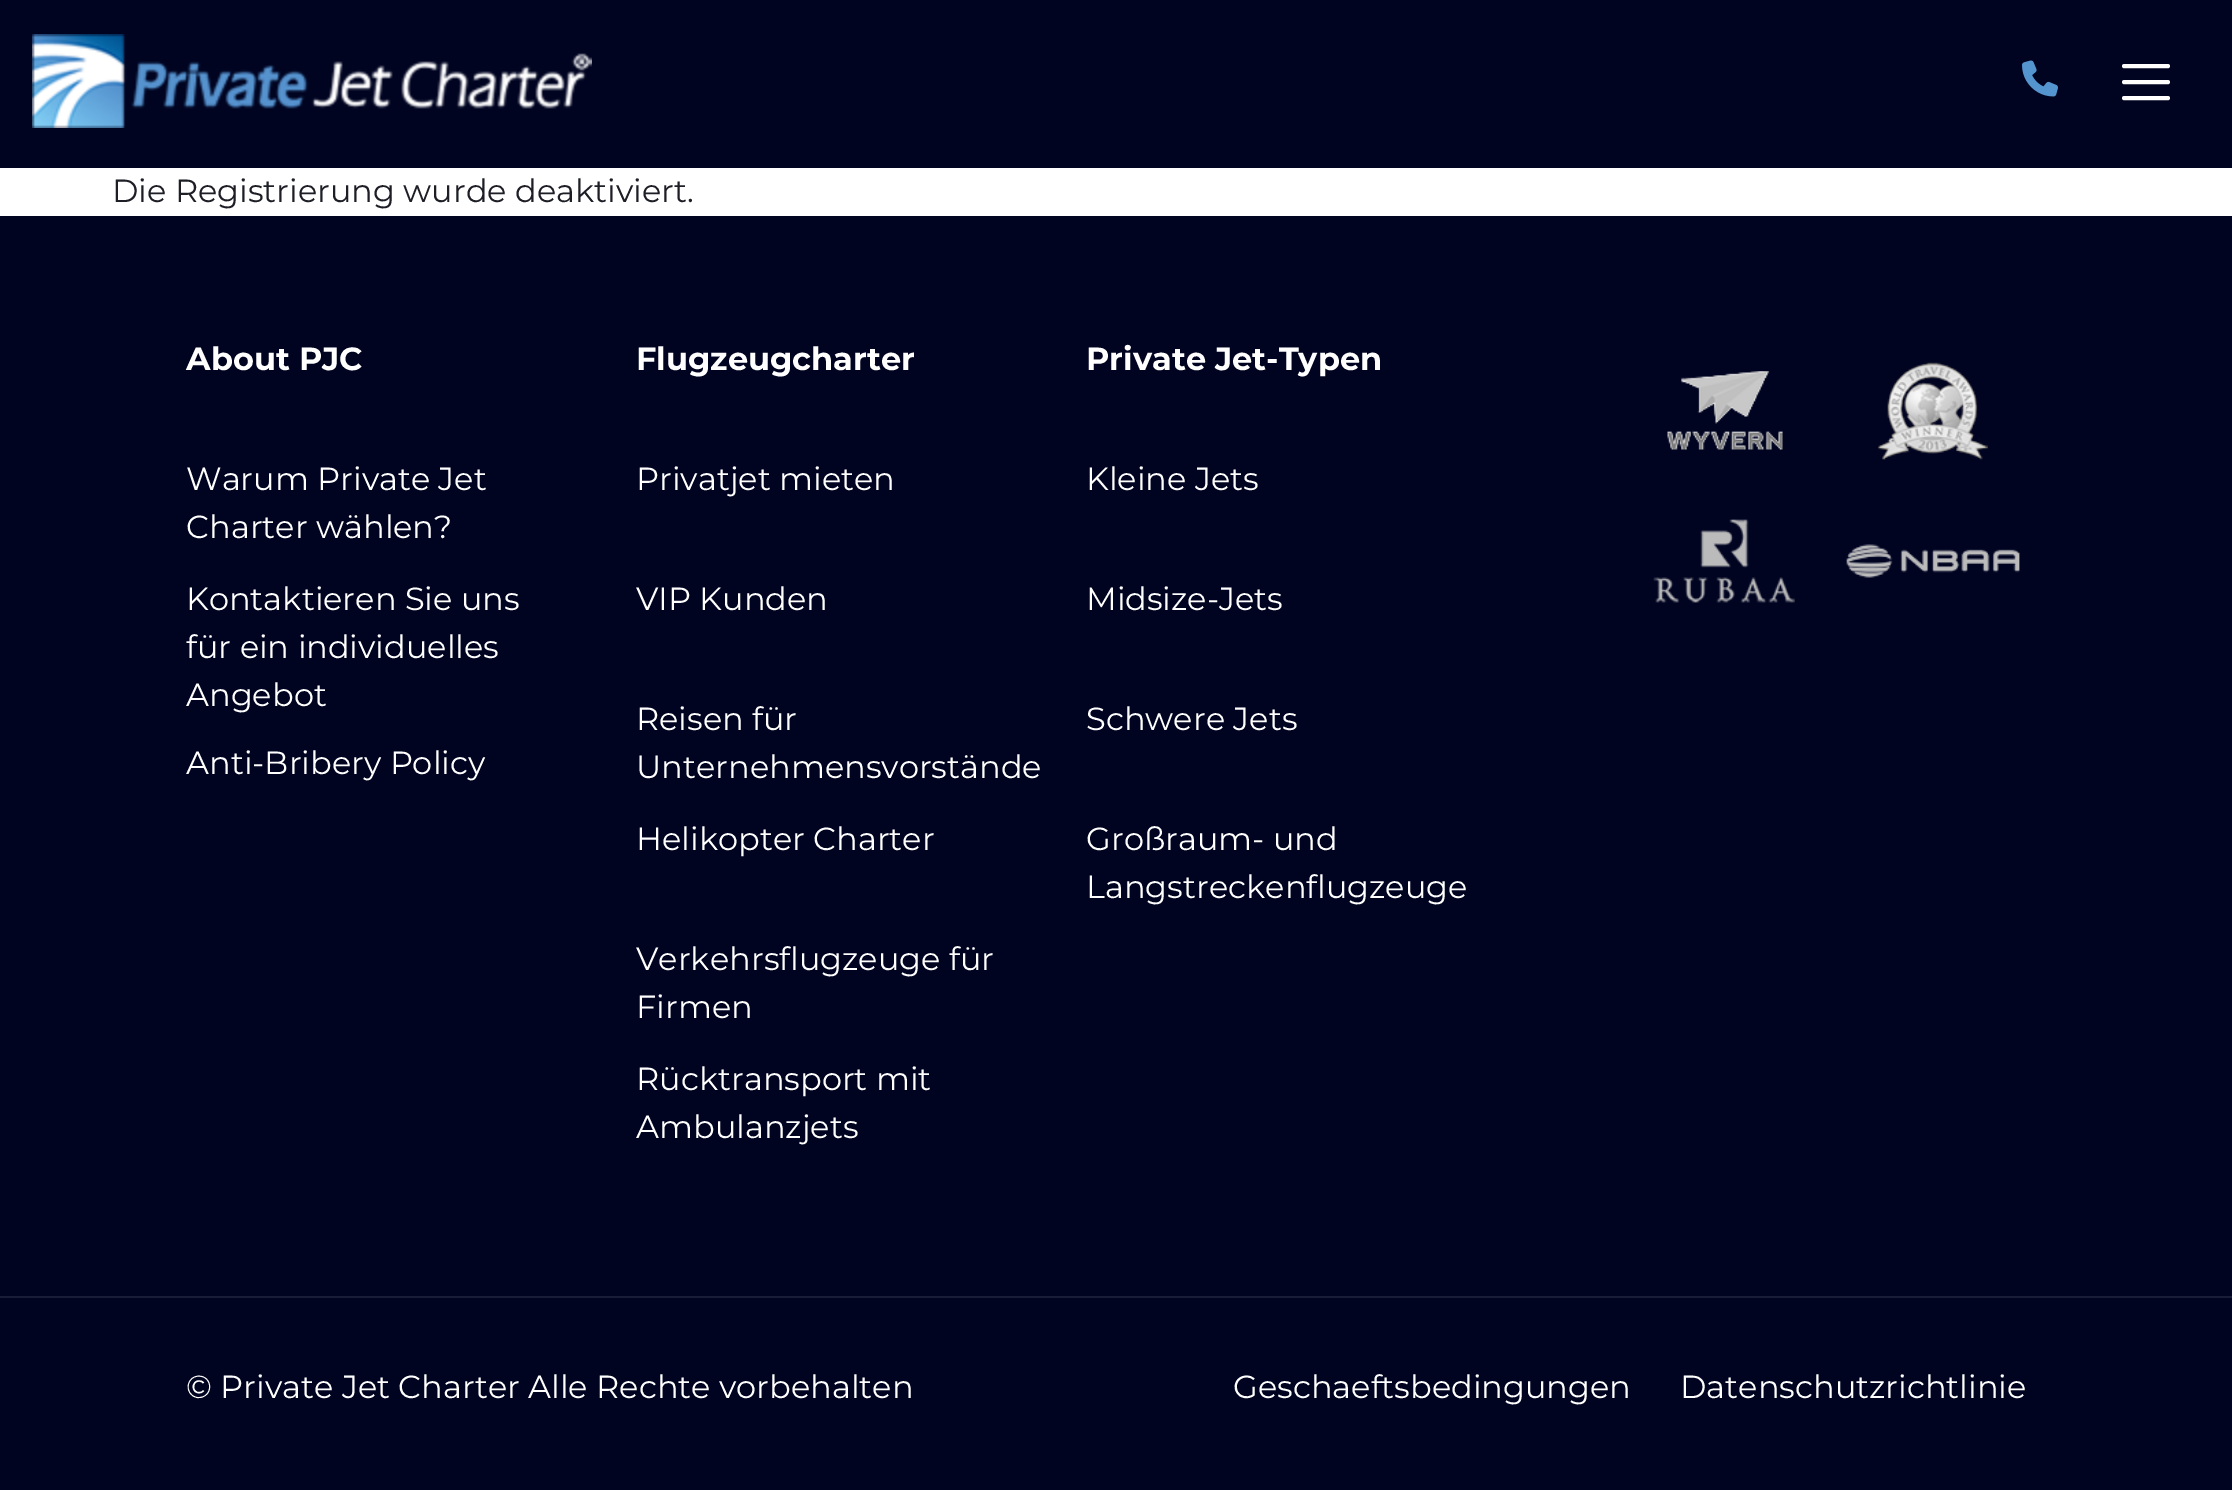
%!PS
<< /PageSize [2232 1490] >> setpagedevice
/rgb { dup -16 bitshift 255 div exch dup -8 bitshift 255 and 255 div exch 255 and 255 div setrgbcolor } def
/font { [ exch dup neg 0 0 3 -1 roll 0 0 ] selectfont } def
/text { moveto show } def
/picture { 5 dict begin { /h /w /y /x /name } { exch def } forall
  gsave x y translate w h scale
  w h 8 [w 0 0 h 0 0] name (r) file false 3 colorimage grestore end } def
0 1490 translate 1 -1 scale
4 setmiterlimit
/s1 { /Montserrat-Thin 32 font 16#1E1F26 rgb } def
/s2 { /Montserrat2-Thin 32 font 16#FFFFFF rgb } def
/s3 { /Montserrat-Thin 32 font 16#FFFFFF rgb } def
16#FFFFFF rgb
0 0 2232 1490 rectfill
16#000421 rgb
0 0 2232 168 rectfill
(pic1.raw) 32 34 560 94 picture
(pic2.raw) 2022 60 36 37 picture
16#FFFFFF rgb
4 setlinewidth
1 setlinecap
2124 66 moveto 2168 66 lineto 2124 82 moveto 2168 82 lineto 2124 98 moveto 2168 98 lineto stroke
s1
(Die Registrierung wurde deaktiviert.) 112 202 text
16#000421 rgb
0 216 2232 1080 rectfill
s2
(About PJC) 186 370 text
s3
(Warum Private Jet) 186 490 text
(Charter wählen?) 186 538 text
(Kontaktieren Sie uns) 186 610 text
(für ein individuelles) 186 658 text
(Angebot) 186 706 text
(Anti-Bribery Policy) 186 774 text
s2
(Flugzeugcharter) 636 370 text
s3
(Privatjet mieten) 636 490 text
(VIP Kunden) 636 610 text
(Reisen für) 636 730 text
(Unternehmensvorstände) 636 778 text
(Helikopter Charter) 636 850 text
(Verkehrsflugzeuge für) 636 970 text
(Firmen) 636 1018 text
(Rücktransport mit) 636 1090 text
(Ambulanzjets) 636 1138 text
s2
(Private Jet-Typen) 1086 370 text
s3
(Kleine Jets) 1086 490 text
(Midsize-Jets) 1086 610 text
(Schwere Jets) 1086 730 text
(Großraum- und) 1086 850 text
(Langstreckenflugzeuge) 1086 898 text
(pic3.raw) 1667 371 116 79 picture
(pic4.raw) 1878 362 110 98 picture
(pic5.raw) 1653 519 142 84 picture
(pic6.raw) 1846 544 174 34 picture
16#000421 rgb
0 1298 2232 192 rectfill
16#1A1D37 rgb
0 1296 2232 2 rectfill
s3
(© Private Jet Charter Alle Rechte vorbehalten) 186 1398 text
(Geschaeftsbedingungen) 1233 1398 text
(Datenschutzrichtlinie) 1680 1398 text
showpage
